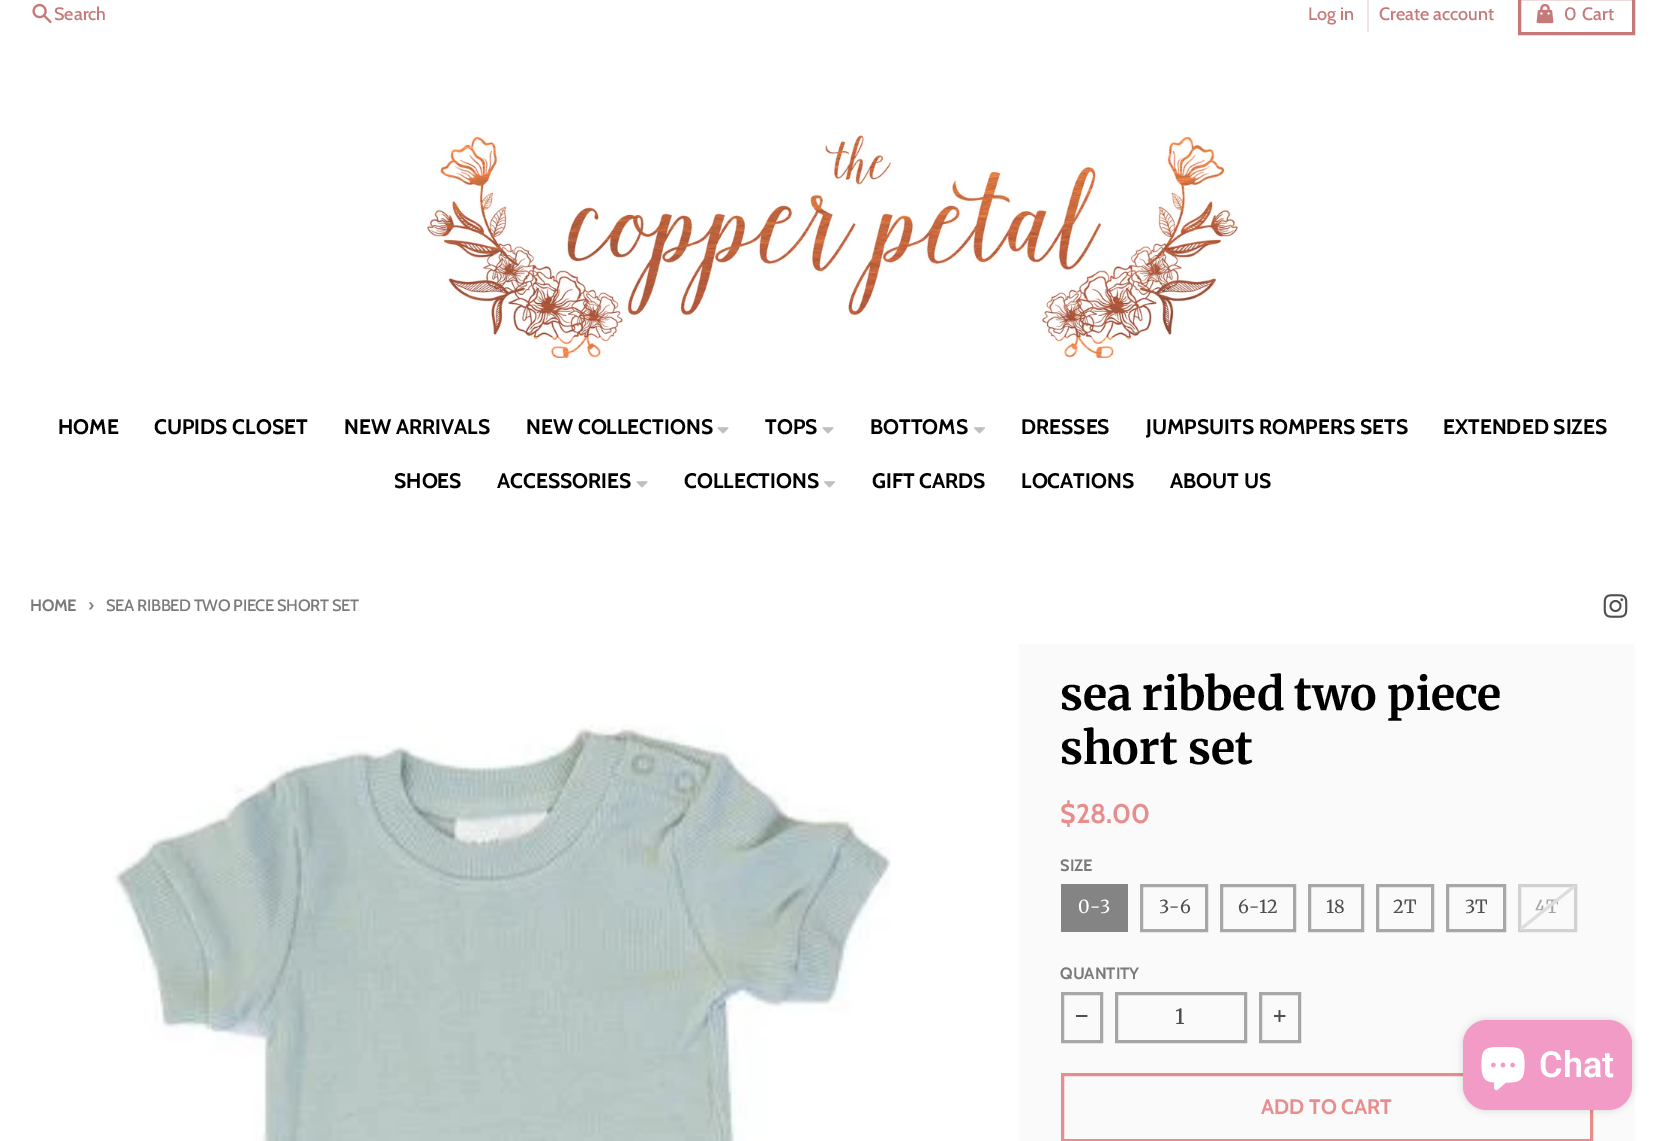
%!PS
<< /PageSize [1664 1141] /PageUsesTransparency true >> setpagedevice
/rgb { dup -16 bitshift 255 div exch dup -8 bitshift 255 and 255 div exch 255 and 255 div setrgbcolor } def
/font { [ exch dup neg 0 0 3 -1 roll 0 0 ] selectfont } def
/text { moveto show } def
/alpha { dup .setfillconstantalpha .setstrokeconstantalpha } def
/roundrect { 5 dict begin { /r /h /w /y /x } { exch def } forall
  x r add y moveto x w add y 2 copy h add r arct x w add y h add x 1 index r arct
  x y h add x y r arct x y 2 copy exch w add exch r arct closepath end } def
/shadow { 12 dict begin { /a /b /q /h /w /y /x } { exch def } forall gsave /was 0 def
  9 -2 -9 { dup b mul 4 div /e exch def 1 sub .425 mul 2.718 exch exp 1 add a .99 .min exch div /now exch def
    1 1 now sub 1 was sub div sub alpha /was now def
    w h .min e 2 mul add 0 gt { x e sub y e sub w e 2 mul add h e 2 mul add
      q e add b .6 mul add w h .min 2 div e add .min 0 .max roundrect fill } if } for grestore end } def
/picture { 5 dict begin { /h /w /y /x /name } { exch def } forall
  gsave x y translate w h scale
  w h 8 [w 0 0 h 0 0] name (r) file false 3 colorimage grestore end } def
0 .pushpdf14devicefilter
0 1141 translate 1 -1 scale
4 setmiterlimit
/s1 { /Cabin-Medium 18 font 16#C67979 rgb } def
/s2 { /Cabin-Bold 21 font 16#000000 rgb } def
/s3 { /Merriweather-Bold 45 font 16#000000 rgb } def
/s4 { /Cabin-Bold 27 font 16#E88D8D rgb } def
/s5 { /Cabin-Bold 16.5 font 16#7B7B7B rgb } def
/s6 { /Merriweather-Regular 18 font 16#FFFFFF rgb } def
/s7 { /Merriweather-Regular 18 font 16#4F4F4F rgb } def
/s8 { /Merriweather-Regular 18 font 16#A5A5A5 rgb } def
/s9 { /Merriweather-Regular 21 font 16#4F4F4F rgb } def
/s10 { /Cabin-Bold 21 font 16#E88D8D rgb } def
/s11 { /Roboto-SemiBold 36 font 16#FFFFFF rgb } def
16#FFFFFF rgb
0 0 1664 1141 rectfill
(pic1.raw) 32 3 20 21 picture
s1
(Search) 54 20 text
(Log in) 1308 20 text
16#F4E4E4 rgb
1367 0 2 32 rectfill
s1
(Create account) 1379 20 text
3 setlinewidth
1519.5 -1.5 114 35 rectstroke
(pic2.raw) 1536 3 18 21 picture
(0) 1564 20 text
(Cart) 1582 20 text
(pic3.raw) 427 135 811 223 picture
s2
(HOME) 58 434 text
(CUPIDS CLOSET) 154 434 text
(NEW ARRIVALS) 344 434 text
(NEW COLLECTIONS) 526 434 text
(pic4.raw) 717 427 12 7 picture
(TOPS) 765 434 text
(pic4.raw) 822 427 12 7 picture
(BOTTOMS) 870 434 text
(pic5.raw) 974 427 11 7 picture
(DRESSES) 1021 434 text
(JUMPSUITS ROMPERS SETS) 1146 434 text
(EXTENDED SIZES) 1443 434 text
(SHOES) 394 488 text
(ACCESSORIES) 497 488 text
(pic4.raw) 636 481 12 7 picture
(COLLECTIONS) 684 488 text
(pic5.raw) 824 481 11 7 picture
(GIFT CARDS) 872 488 text
(LOCATIONS) 1021 488 text
(ABOUT US) 1170 488 text
/Cabin-Bold 16.5 font
16#7B7B7B rgb
30 611 moveto -0.4 0 (HOME) ashow
/Cabin-Medium 18 font
88 611 moveto -0.4 0 (›) ashow
/Cabin-Medium 16.5 font
106 611 moveto -0.4 0 (SEA RIBBED TWO PIECE SHORT SET) ashow
(pic6.raw) 1603 594 25 24 picture
(pic7.raw) 113 724 778 417 picture
16#FAFAFA rgb
1019 644 616 497 rectfill
s3
(sea ribbed two piece) 1060 710 text
(short set) 1060 764 text
s4
($28.00) 1060 823 text
s5
(SIZE) 1060 871 text
16#848484 rgb
1061 884 67 48 rectfill
s6
(0-3) 1078 913 text
16#A7A7A7 rgb
1141.5 885.5 65 45 rectstroke
s7
(3-6) 1159 913 text
16#A7A7A7 rgb
1221.5 885.5 73 45 rectstroke
s7
(6-12) 1238 913 text
16#A7A7A7 rgb
1309.5 885.5 53 45 rectstroke
s7
(18) 1326 913 text
16#A7A7A7 rgb
1377.5 885.5 55 45 rectstroke
s7
(2T) 1393 913 text
16#A7A7A7 rgb
1447.5 885.5 57 45 rectstroke
s7
(3T) 1465 913 text
16#D1D1D1 rgb
1519.5 885.5 56 45 rectstroke
s8
(4T) 1535 913 text
gsave
1520 885 55 45 rectclip
16#DDDDDD rgb
1519.5 930 moveto 1576 885 lineto stroke
grestore
s5
(QUANTITY) 1060 979 text
16#A7A7A7 rgb
1062.5 993.5 39 48 rectstroke
(pic8.raw) 1076 1015 12 2 picture
16#A5A5A5 rgb
1116.5 993.5 129 48 rectstroke
s9
(1) 1175 1024 text
16#A7A7A7 rgb
1260.5 993.5 39 48 rectstroke
(pic9.raw) 1274 1010 12 12 picture
16#E88D8D rgb
1062.5 1074.5 529 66 rectstroke
s10
(ADD TO CART) 1261 1114 text
16#000000 rgb
1463 1020 169 90 24 4 0.15 shadow
16#F29BC6 rgb
1463 1020 169 90 24 roundrect fill
(pic10.raw) 1481 1047 44 44 picture
s11
(Chat) 1539 1077 text
.poppdf14devicefilter showpage
